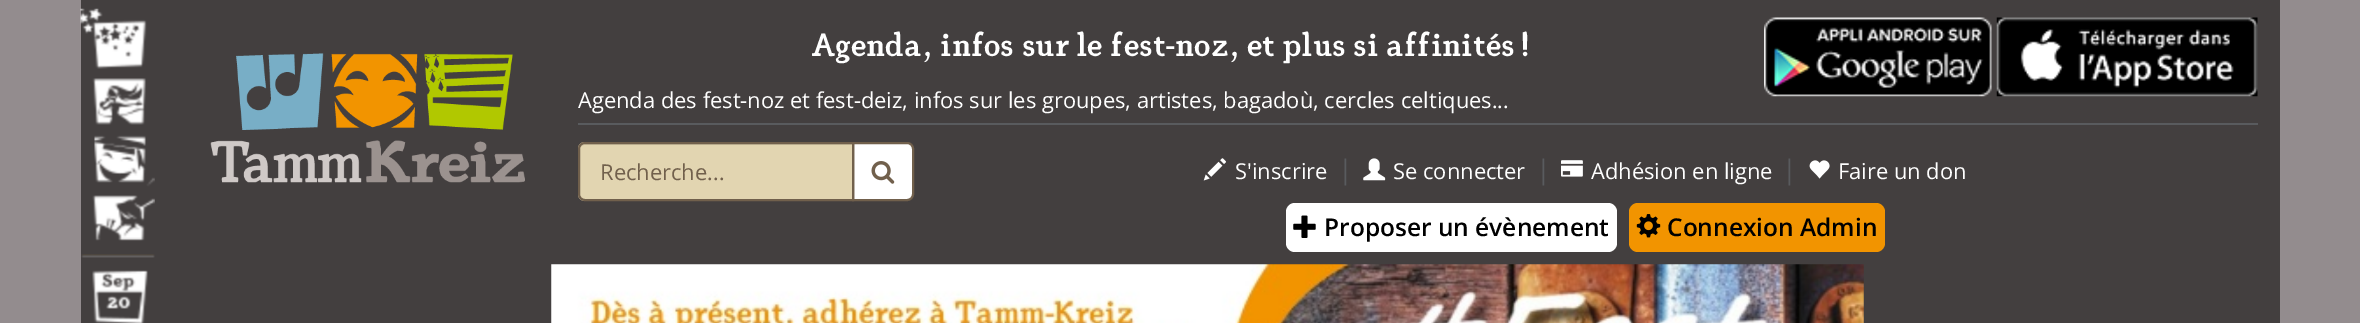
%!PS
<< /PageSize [2360 323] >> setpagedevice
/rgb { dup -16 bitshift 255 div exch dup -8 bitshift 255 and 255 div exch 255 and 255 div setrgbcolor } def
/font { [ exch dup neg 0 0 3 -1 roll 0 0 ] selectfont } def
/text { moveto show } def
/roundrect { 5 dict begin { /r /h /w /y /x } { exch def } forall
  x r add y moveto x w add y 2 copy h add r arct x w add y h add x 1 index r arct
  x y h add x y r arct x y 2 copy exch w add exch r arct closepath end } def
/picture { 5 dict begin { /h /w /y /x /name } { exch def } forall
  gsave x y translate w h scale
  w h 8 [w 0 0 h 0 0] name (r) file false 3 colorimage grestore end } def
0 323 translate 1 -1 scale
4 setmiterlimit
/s1 { /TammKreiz-Medium 35 font 16#FFFFFF rgb } def
/s2 { /OpenSans-Regular 21.9 font 16#FFFFFF rgb } def
/s3 { /OpenSans-Regular 21.9 font 16#71604C rgb } def
/s4 { /OpenSans-Regular 27 font 16#595B5E rgb } def
/s5 { /OpenSans-SemiBold 24.5 font 16#000000 rgb } def
16#938C8E rgb
0 0 2360 323 rectfill
16#433F3F rgb
81 0 2177 323 rectfill
(pic1.raw) 80 8 67 61 picture
(pic2.raw) 92 78 54 47 picture
(pic3.raw) 94 135 52 48 picture
(pic4.raw) 92 177 63 64 picture
(pic5.raw) 81 254 74 4 picture
(pic6.raw) 92 270 56 53 picture
(pic7.raw) 210 53 315 130 picture
s1
(Agenda, infos sur le fest-noz, et plus si affinités !) 812 56 text
(pic8.raw) 1764 17 228 80 picture
(pic9.raw) 1996 17 262 80 picture
16#595B5E rgb
578 123 1680 2 rectfill
s2
(Agenda des fest-noz et fest-deiz, infos sur les groupes, artistes, bagadoù, cercles celtiques...) 578 108 text
853 143 moveto 907 143 lineto 910.5 143 913 145.5 913 149 curveto 913 194 lineto 913 197.5 910.5 200 907 200 curveto 853 200 lineto closepath gsave fill grestore
16#71604C rgb
2 setlinewidth
stroke
16#E2D5B1 rgb
585 142 moveto 854 142 lineto 854 201 lineto 585 201 lineto 581 201 578 198 578 194 curveto 578 149 lineto 578 145 581 142 585 142 curveto closepath fill
16#D1C5A4 rgb
584 145 moveto 852 145 lineto 852 144 lineto 584 144 lineto 581 144 579 147 579 150 curveto 579 148 582 145 584 145 curveto closepath fill
16#71604C rgb
585 143 moveto 853 143 lineto 853 200 lineto 585 200 lineto 581.5 200 579 197.5 579 194 curveto 579 149 lineto 579 145.5 581.5 143 585 143 curveto closepath stroke
(Recherche...) 600 180 text
(pic10.raw) 871 161 24 23 picture
(pic11.raw) 1203 158 23 23 picture
s2
(S'inscrire) 1235 179 text
s4
(|) 1338 179 text
(pic12.raw) 1363 158 23 23 picture
s2
(Se connecter) 1393 179 text
s4
(|) 1536 179 text
(pic13.raw) 1561 160 22 17 picture
s2
(Adhésion en ligne) 1591 179 text
s4
(|) 1782 179 text
(pic14.raw) 1809 160 21 19 picture
s2
(Faire un don) 1838 179 text
1286 203 331 49 9 roundrect fill
(pic15.raw) 1293 215 23 23 picture
s5
(Proposer un évènement) 1324 236 text
16#F29400 rgb
1629 203 256 49 9 roundrect fill
(pic16.raw) 1636 214 25 24 picture
s5
(Connexion Admin) 1667 236 text
(pic17.raw) 551 264 1313 59 picture
gsave 2258 0 moveto 2280 0 lineto 2280 323 lineto 2258 323 lineto closepath clip newpath
<< /ShadingType 2 /ColorSpace /DeviceRGB /Coords [2269 0 2269 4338] /Extend [true true] /Function << /FunctionType 3 /Domain [0 1] /Functions [<< /FunctionType 2 /Domain [0 1] /C0 [0.263 0.247 0.247] /C1 [0.263 0.247 0.247] /N 1 >> << /FunctionType 2 /Domain [0 1] /C0 [0.263 0.247 0.247] /C1 [0.388 0.376 0.376] /N 1 >> << /FunctionType 2 /Domain [0 1] /C0 [0.388 0.376 0.376] /C1 [0.388 0.376 0.376] /N 1 >>] /Bounds [0.1 0.4] /Encode [0 1 0 1 0 1] >> >> shfill grestore
showpage
